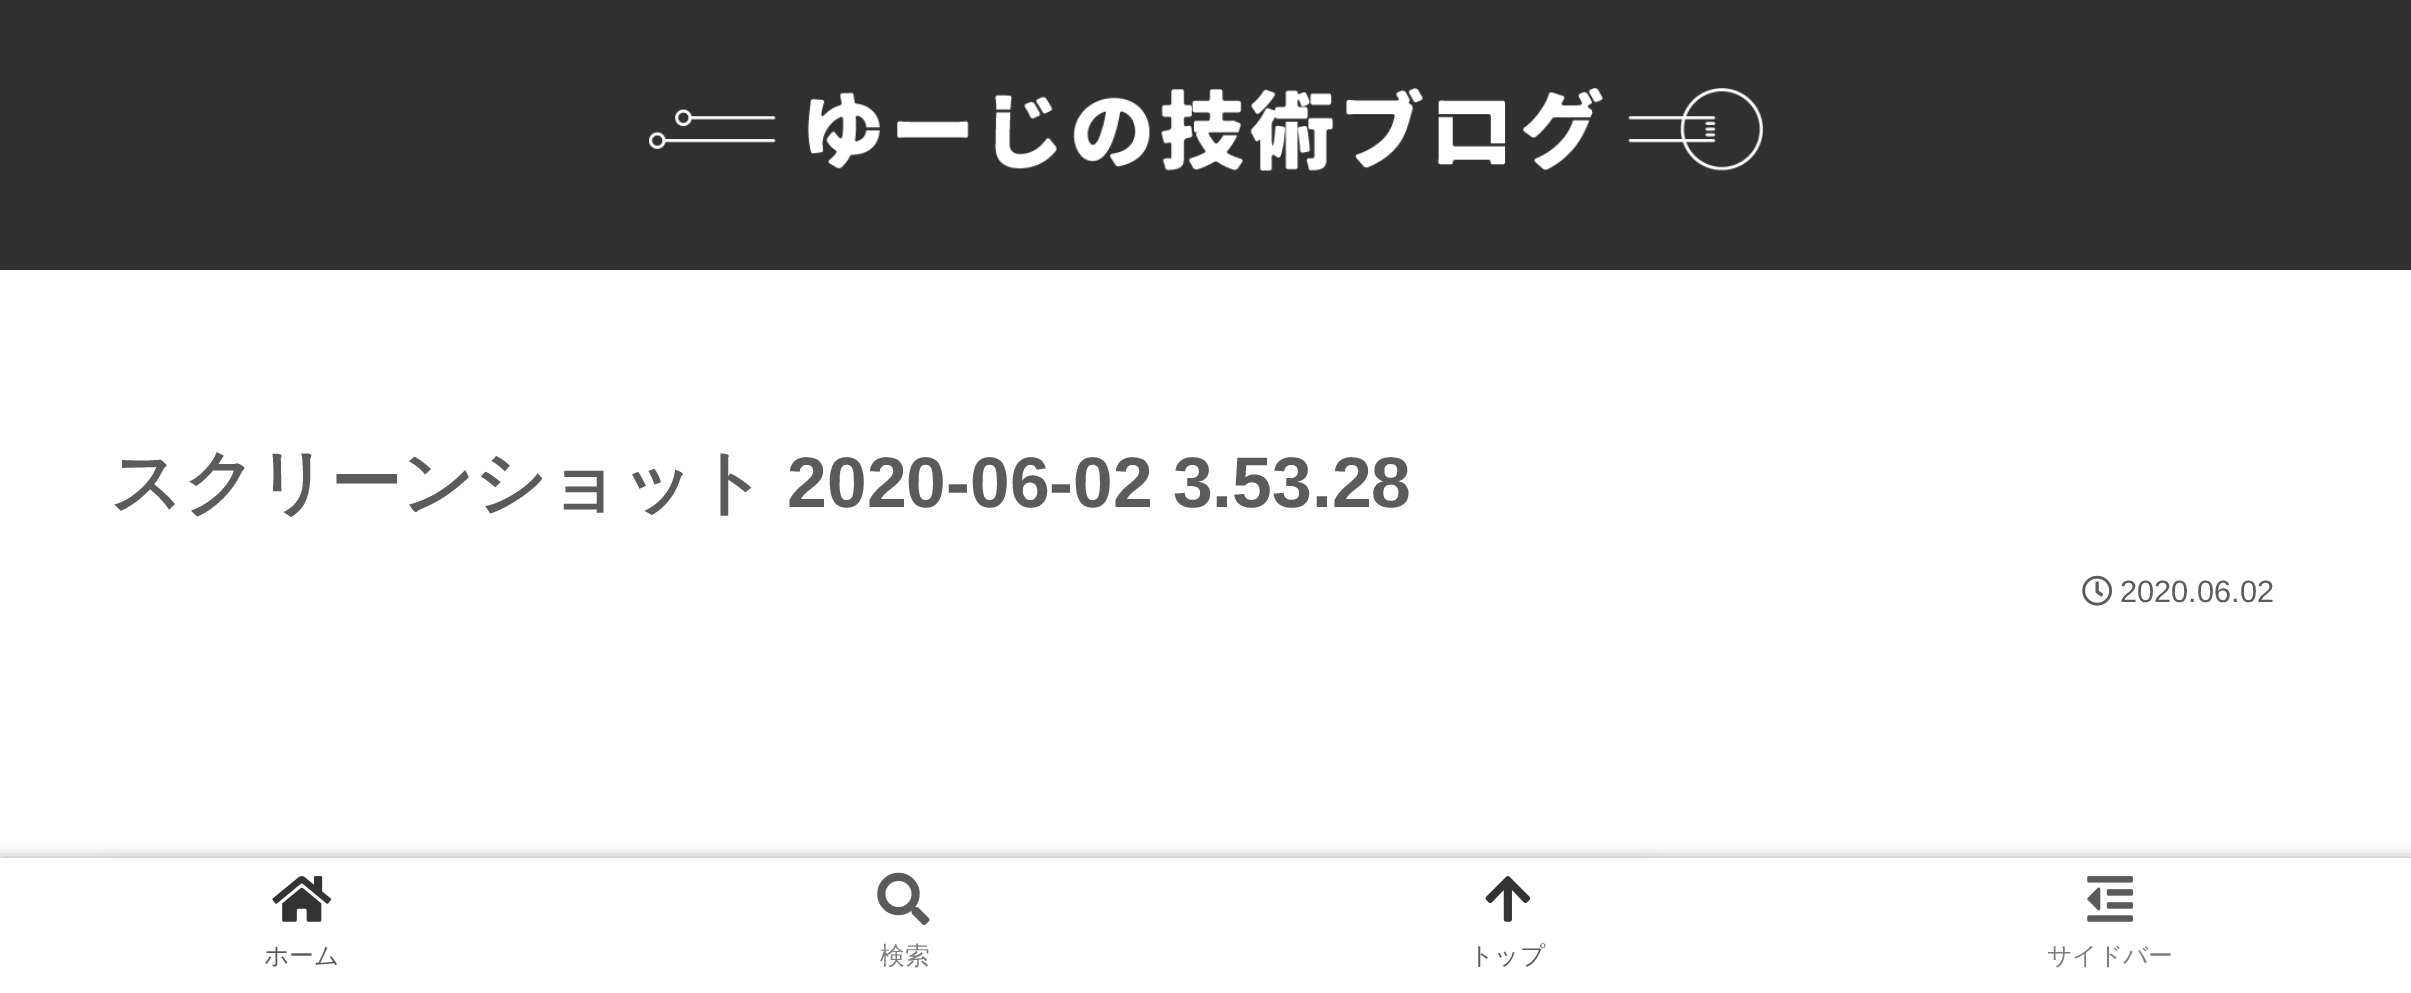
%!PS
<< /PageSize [2411 993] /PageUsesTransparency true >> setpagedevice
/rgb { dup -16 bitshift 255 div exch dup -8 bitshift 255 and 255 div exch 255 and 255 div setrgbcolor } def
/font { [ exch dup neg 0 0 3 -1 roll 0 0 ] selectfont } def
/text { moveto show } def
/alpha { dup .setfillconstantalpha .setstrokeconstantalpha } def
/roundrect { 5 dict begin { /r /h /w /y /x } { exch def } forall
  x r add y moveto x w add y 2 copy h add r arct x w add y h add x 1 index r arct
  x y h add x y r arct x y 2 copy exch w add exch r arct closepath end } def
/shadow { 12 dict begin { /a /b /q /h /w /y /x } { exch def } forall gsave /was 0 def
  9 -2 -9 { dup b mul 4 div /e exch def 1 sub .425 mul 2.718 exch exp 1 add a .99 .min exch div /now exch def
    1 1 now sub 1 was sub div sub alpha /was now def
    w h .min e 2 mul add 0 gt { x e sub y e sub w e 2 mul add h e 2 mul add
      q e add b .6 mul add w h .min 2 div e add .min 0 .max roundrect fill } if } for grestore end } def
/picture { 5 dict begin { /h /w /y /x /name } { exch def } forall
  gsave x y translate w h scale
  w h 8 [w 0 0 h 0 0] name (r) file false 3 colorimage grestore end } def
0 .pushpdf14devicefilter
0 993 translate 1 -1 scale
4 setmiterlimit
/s1 { /WenQuanYiZenHei-Bold 71.5 font 16#5B5B5B rgb } def
/s2 { /LiberationSans-Bold 71.5 font 16#5B5B5B rgb } def
/s3 { /LiberationSans-Regular 30.75 font 16#5B5B5B rgb } def
/s4 { /WenQuanYiZenHei-Medium 24.75 font 16#5B5B5B rgb } def
/s5 { /WenQuanYiZenHei-Medium 24.75 font 16#7C7C7C rgb } def
16#FFFFFF rgb
0 0 2411 993 rectfill
16#303030 rgb
0 0 2411 270 rectfill
(pic1.raw) 649 88 1114 83 picture
s1
(スクリーンショット) 110 507 text
s2
(2020-06-02 3.53.28) 787 507 text
(pic2.raw) 2082 575 31 31 picture
s3
(2020.06.02) 2120 602 text
16#EEEEEE rgb
124 886 1512 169 0 20.5 1 shadow
16#A9A9A9 rgb
0 858 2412 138 0 7 1 shadow
16#FFFFFF rgb
0 858 2411 135 rectfill
(pic3.raw) 272 876 60 46 picture
s4
(ホーム) 264 964 text
(pic4.raw) 877 872 53 53 picture
s5
(検索) 880 964 text
(pic5.raw) 1485 876 46 46 picture
s4
(トップ) 1469 964 text
(pic6.raw) 2087 876 46 46 picture
s5
(サイドバー) 2047 964 text
.poppdf14devicefilter showpage
